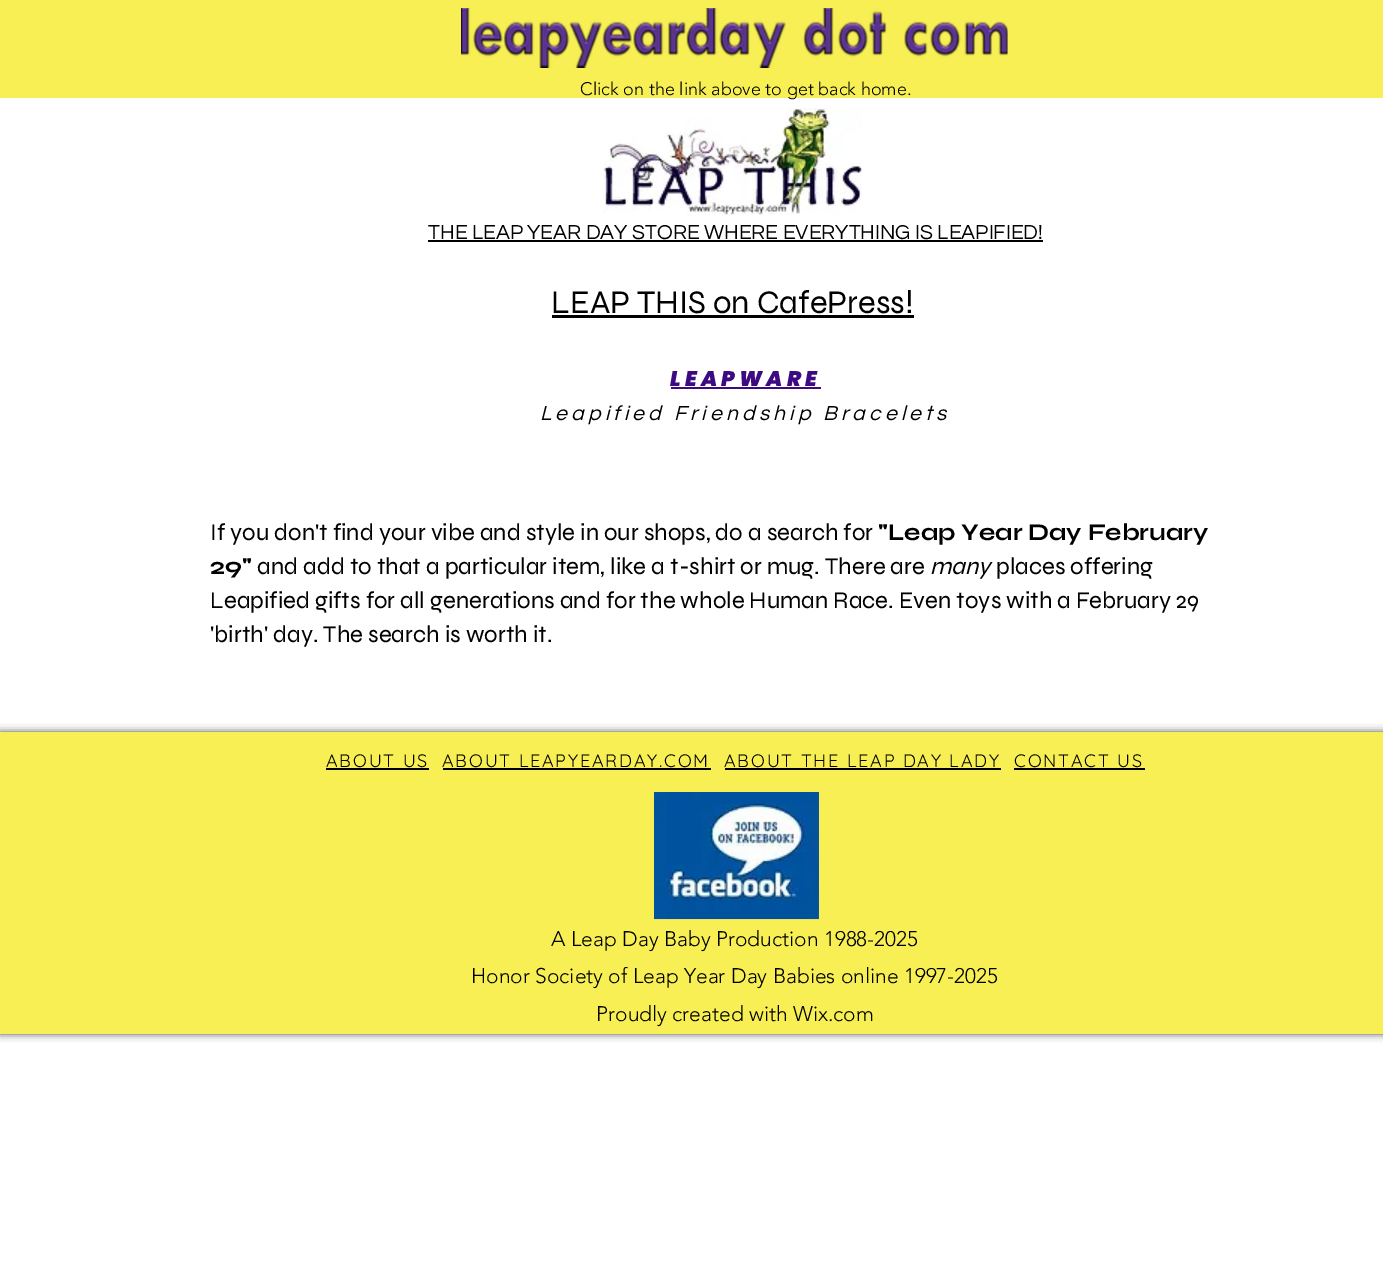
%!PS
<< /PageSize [1383 1270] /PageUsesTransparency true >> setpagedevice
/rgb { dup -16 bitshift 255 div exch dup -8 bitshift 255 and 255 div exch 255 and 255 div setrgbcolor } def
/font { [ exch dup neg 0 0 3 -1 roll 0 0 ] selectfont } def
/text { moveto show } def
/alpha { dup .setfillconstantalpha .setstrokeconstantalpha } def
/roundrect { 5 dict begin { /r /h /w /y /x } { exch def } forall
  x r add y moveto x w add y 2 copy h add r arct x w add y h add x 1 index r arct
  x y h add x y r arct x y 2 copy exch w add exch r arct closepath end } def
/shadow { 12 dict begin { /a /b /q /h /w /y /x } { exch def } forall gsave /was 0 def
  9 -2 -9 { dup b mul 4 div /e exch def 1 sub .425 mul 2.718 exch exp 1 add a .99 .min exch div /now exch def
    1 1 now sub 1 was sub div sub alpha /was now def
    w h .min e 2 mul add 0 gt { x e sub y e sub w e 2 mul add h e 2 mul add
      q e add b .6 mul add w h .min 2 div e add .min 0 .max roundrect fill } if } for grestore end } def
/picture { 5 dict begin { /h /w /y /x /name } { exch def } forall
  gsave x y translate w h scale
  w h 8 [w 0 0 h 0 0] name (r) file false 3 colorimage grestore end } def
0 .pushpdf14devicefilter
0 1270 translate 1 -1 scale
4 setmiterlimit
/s1 { /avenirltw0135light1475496-Light 18 font 16#000000 rgb } def
/s2 { /Questrial-Regular 21 font 16#000000 rgb } def
/s3 { /Syne-Regular 33 font 16#000000 rgb } def
/s4 { /Syne-Regular 24 font 16#000000 rgb } def
/s5 { /Syne-Bold 24 font 16#000000 rgb } def
/s6 { /Syne-Italic 24 font 16#000000 rgb } def
/s7 { /avenirltw0135light1475496-Light 21 font 16#000000 rgb } def
16#FFFFFF rgb
0 0 1383 1270 rectfill
16#F7EF54 rgb
0 0 1383 98 rectfill
(pic1.raw) 461 8 547 60 picture
s1
(Click on the link above to get back home.) 580 95 text
(pic2.raw) 603 108 259 107 picture
s2
(THE LEAP YEAR DAY STORE WHERE EVERYTHING IS LEAPIFIED!) 428 239 text
428 240 615 2 rectfill
s3
(LEAP THIS on CafePress!) 551 313 text
552 315 362 3 rectfill
/Poppins-BlackItalic 21 font
16#3E0A82 rgb
670 386 moveto 4.2 0 (LEAPWARE) ashow
671 387 150 2 rectfill
/Questrial-Italic 21 font
16#000000 rgb
540 420 moveto 4.2 0 (Leapified Friendship Bracelets) ashow
s4
(If you don't find your vibe and style in our shops, do a search for) 210 540 text
s5
("Leap Year Day February) 878 540 text
(29") 210 574 text
s4
(and add to that a particular item, like a t-shirt or mug. There are) 257 574 text
s6
(many) 930 574 text
s4
(places offering) 996 574 text
(Leapified gifts for all generations and for the whole Human Race. Even toys with a February 29) 210 608 text
('birth' day. The search is worth it.) 210 642 text
0 732 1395 302 0 4 0.7 shadow
16#F7EF54 rgb
0 732 1383 302 rectfill
/Quicksand-Regular 18 font
16#000000 rgb
326 767 moveto 1.8 0 (ABOUT US) ashow
326 768 103 2 rectfill
442 767 moveto 1.8 0 (ABOUT LEAPYEARDAY.COM) ashow
443 768 268 2 rectfill
724 767 moveto 1.8 0 (ABOUT THE LEAP DAY LADY) ashow
725 768 276 2 rectfill
1014 767 moveto 1.8 0 (CONTACT US) ashow
1014 768 131 2 rectfill
(pic3.raw) 654 792 165 128 picture
s7
(A Leap Day Baby Production 1988-2025) 551 946 text
(Honor Society of Leap Year Day Babies online 1997-2025) 471 983 text
(Proudly created with Wix.com) 596 1021 text
.poppdf14devicefilter showpage
